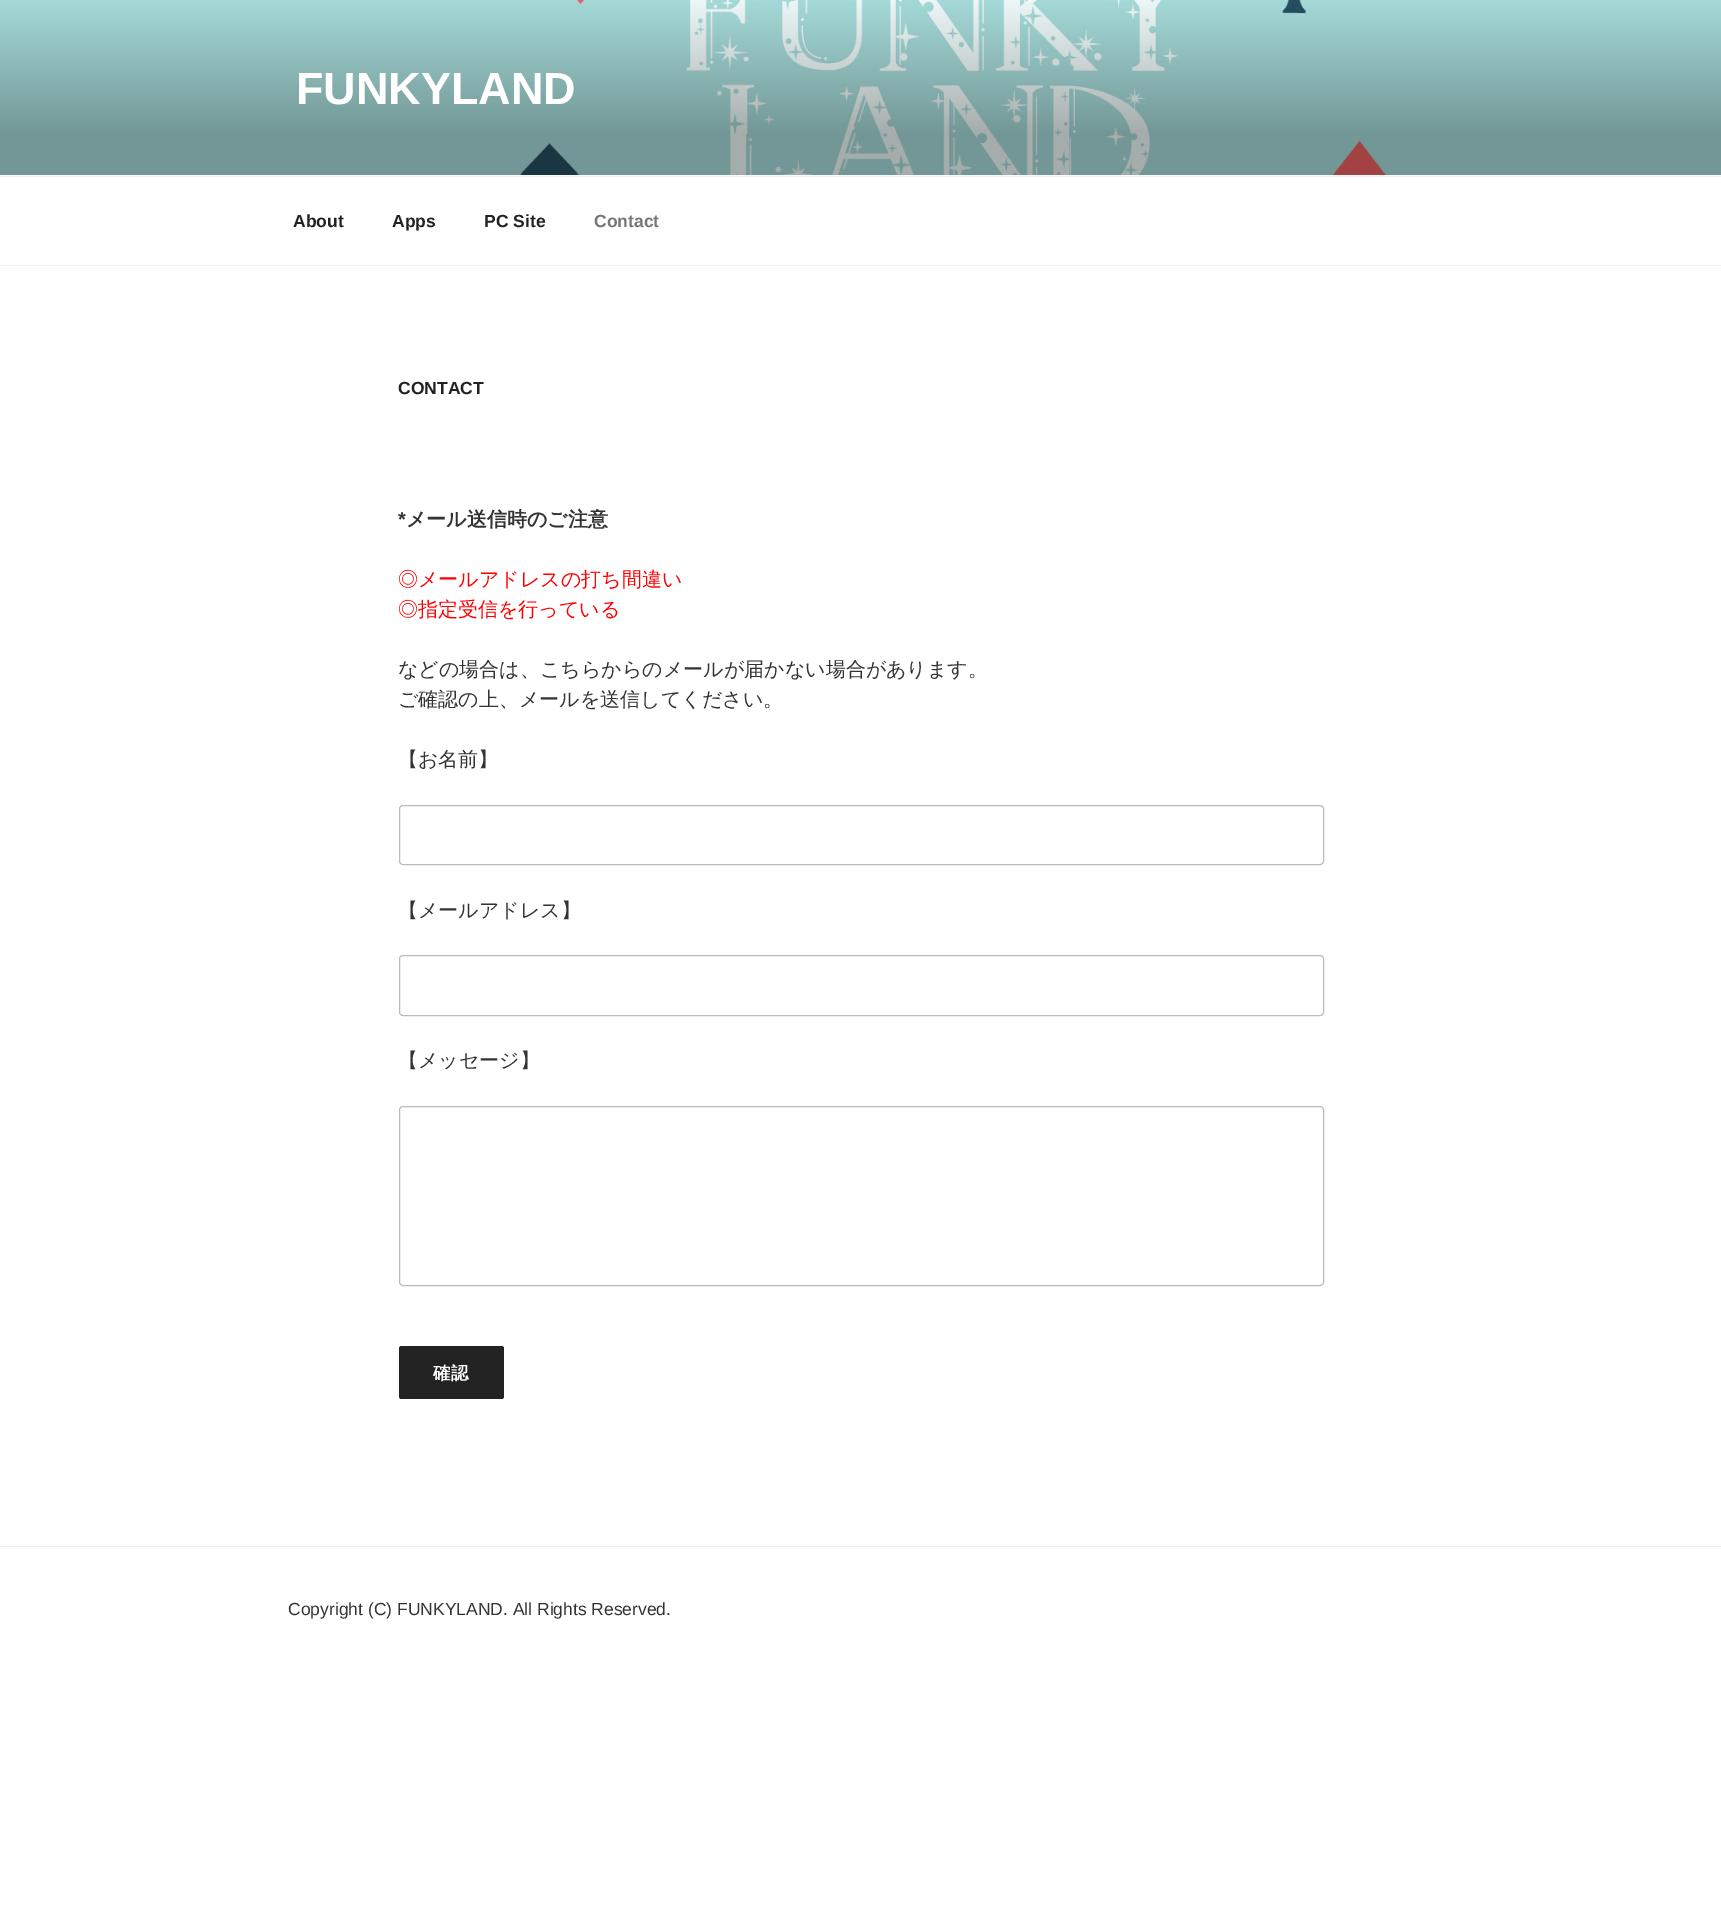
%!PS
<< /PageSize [1721 1913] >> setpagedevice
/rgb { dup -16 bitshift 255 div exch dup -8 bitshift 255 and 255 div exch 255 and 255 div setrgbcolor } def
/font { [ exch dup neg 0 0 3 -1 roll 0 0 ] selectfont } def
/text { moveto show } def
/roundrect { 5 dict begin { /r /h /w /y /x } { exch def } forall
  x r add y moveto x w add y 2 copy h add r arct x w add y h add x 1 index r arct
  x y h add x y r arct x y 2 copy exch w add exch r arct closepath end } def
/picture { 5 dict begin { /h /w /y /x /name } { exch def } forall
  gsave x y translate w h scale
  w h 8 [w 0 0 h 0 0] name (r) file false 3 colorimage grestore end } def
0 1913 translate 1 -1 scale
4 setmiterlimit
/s1 { /LiberationSans-Bold 45 font 16#FFFFFF rgb } def
/s2 { /LiberationSans-Bold 17.5 font 16#222222 rgb } def
/s3 { /LiberationSans-Bold 17.5 font 16#767676 rgb } def
/s4 { /LiberationSans-Bold 20 font 16#333333 rgb } def
/s5 { /WenQuanYiZenHei-Bold 20 font 16#333333 rgb } def
/s6 { /WenQuanYiZenHei-Medium 20 font 16#FF0000 rgb } def
/s7 { /WenQuanYiZenHei-Medium 20 font 16#333333 rgb } def
/s8 { /WenQuanYiZenHei-Bold 17.5 font 16#FFFFFF rgb } def
/s9 { /LiberationSans-Regular 17.5 font 16#333333 rgb } def
16#FFFFFF rgb
0 0 1721 1913 rectfill
16#FAFAFA rgb
0 175 1721 1 rectfill
(pic1.raw) 0 0 1721 175 picture
s1
(FUNKYLAND) 296 104 text
16#EEEEEE rgb
0 176 1721 1 rectfill
0 265 1721 1 rectfill
s2
(About) 293 227 text
(Apps) 392 227 text
(PC Site) 484 227 text
s3
(Contact) 594 227 text
s2
(CONTACT) 398 394 text
s4
(*) 398 526 text
s5
(メール送信時のご注意) 406 526 text
s6
(◎メールアドレスの打ち間違い) 398 586 text
(◎指定受信を行っている) 398 616 text
s7
(などの場合は、こちらからのメールが届かない場合があります。) 398 676 text
(ご確認の上、メールを送信してください。) 398 706 text
(【お名前】) 398 766 text
16#BBBBBB rgb
399.5 805.5 924 59 3.5 roundrect stroke
s7
(【メールアドレス】) 398 917 text
16#BBBBBB rgb
399.5 955.5 924 60 3.5 roundrect stroke
s7
(【メッセージ】) 398 1067 text
16#BBBBBB rgb
399.5 1106.5 924 179 3.5 roundrect stroke
16#222222 rgb
399 1346 105 53 2.5 roundrect fill
s8
(確認) 433 1379 text
16#EEEEEE rgb
0 1546 1721 1 rectfill
s9
(Copyright \(C\) FUNKYLAND. All Rights Reserved.) 288 1615 text
showpage
